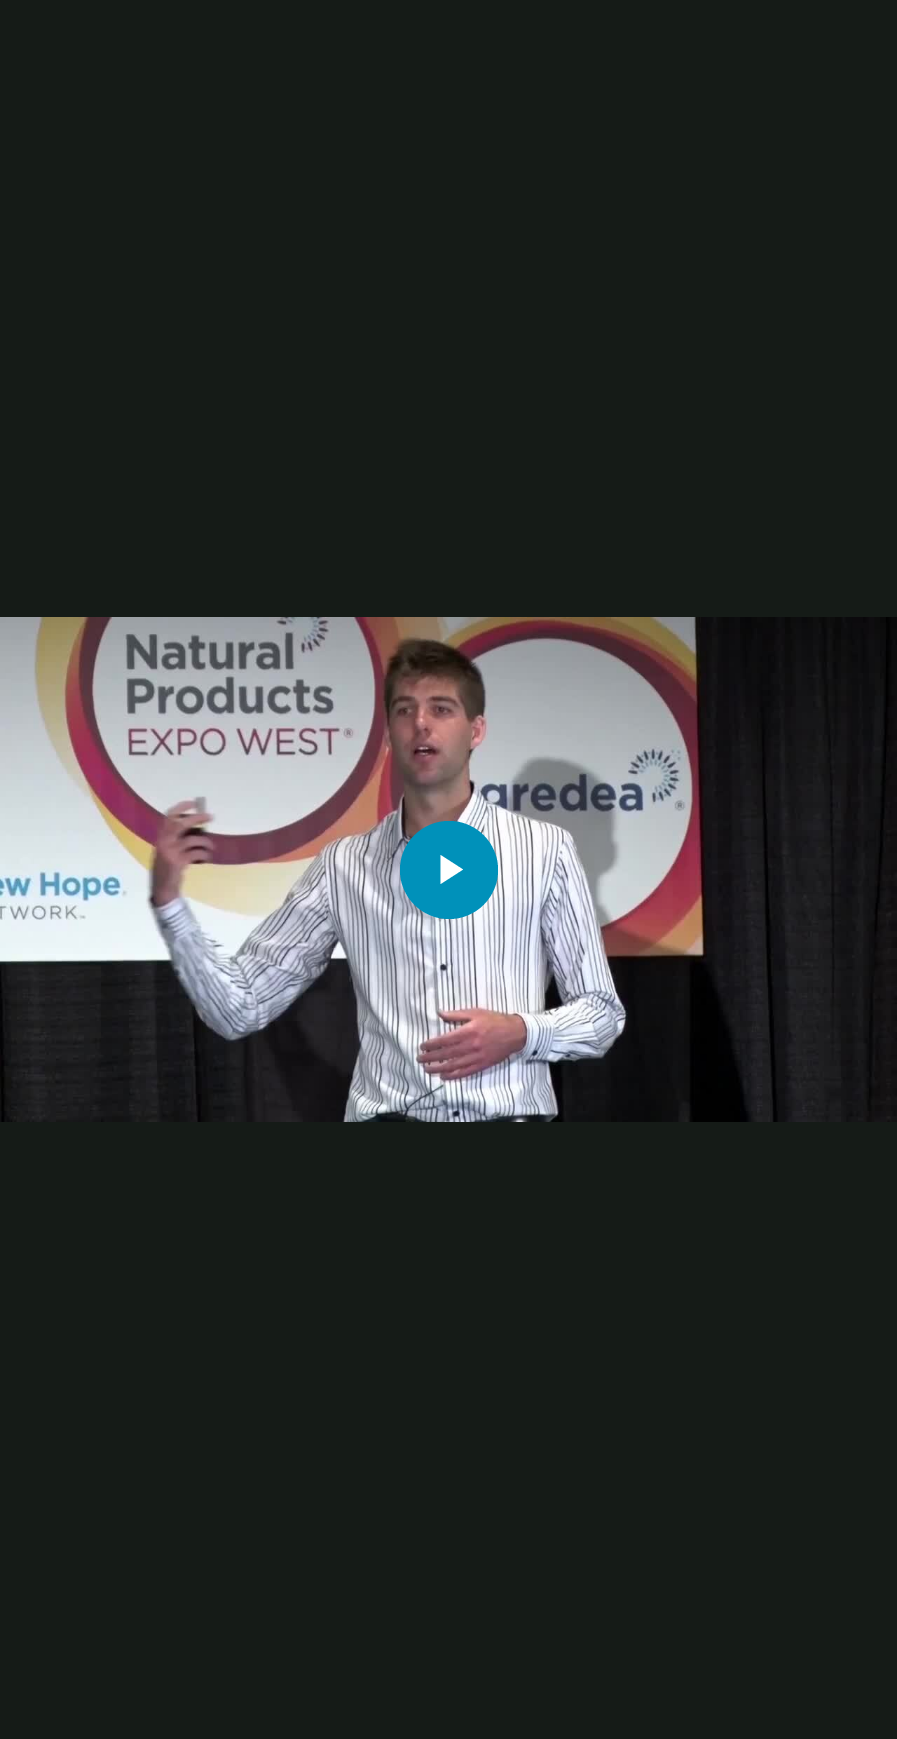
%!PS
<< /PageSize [897 1739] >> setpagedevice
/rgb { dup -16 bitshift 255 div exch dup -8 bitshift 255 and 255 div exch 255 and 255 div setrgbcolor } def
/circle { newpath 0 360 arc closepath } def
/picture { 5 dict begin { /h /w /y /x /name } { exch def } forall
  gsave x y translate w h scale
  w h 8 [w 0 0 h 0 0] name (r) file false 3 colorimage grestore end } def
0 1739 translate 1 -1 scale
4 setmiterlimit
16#151B17 rgb
0 0 897 1739 rectfill
(pic1.raw) 0 617 897 505 picture
16#0091BA rgb
449 870 49 circle fill
16#FFFFFF rgb
440.5 855 moveto 440.5 884 lineto 463 869.5 lineto closepath fill
showpage
